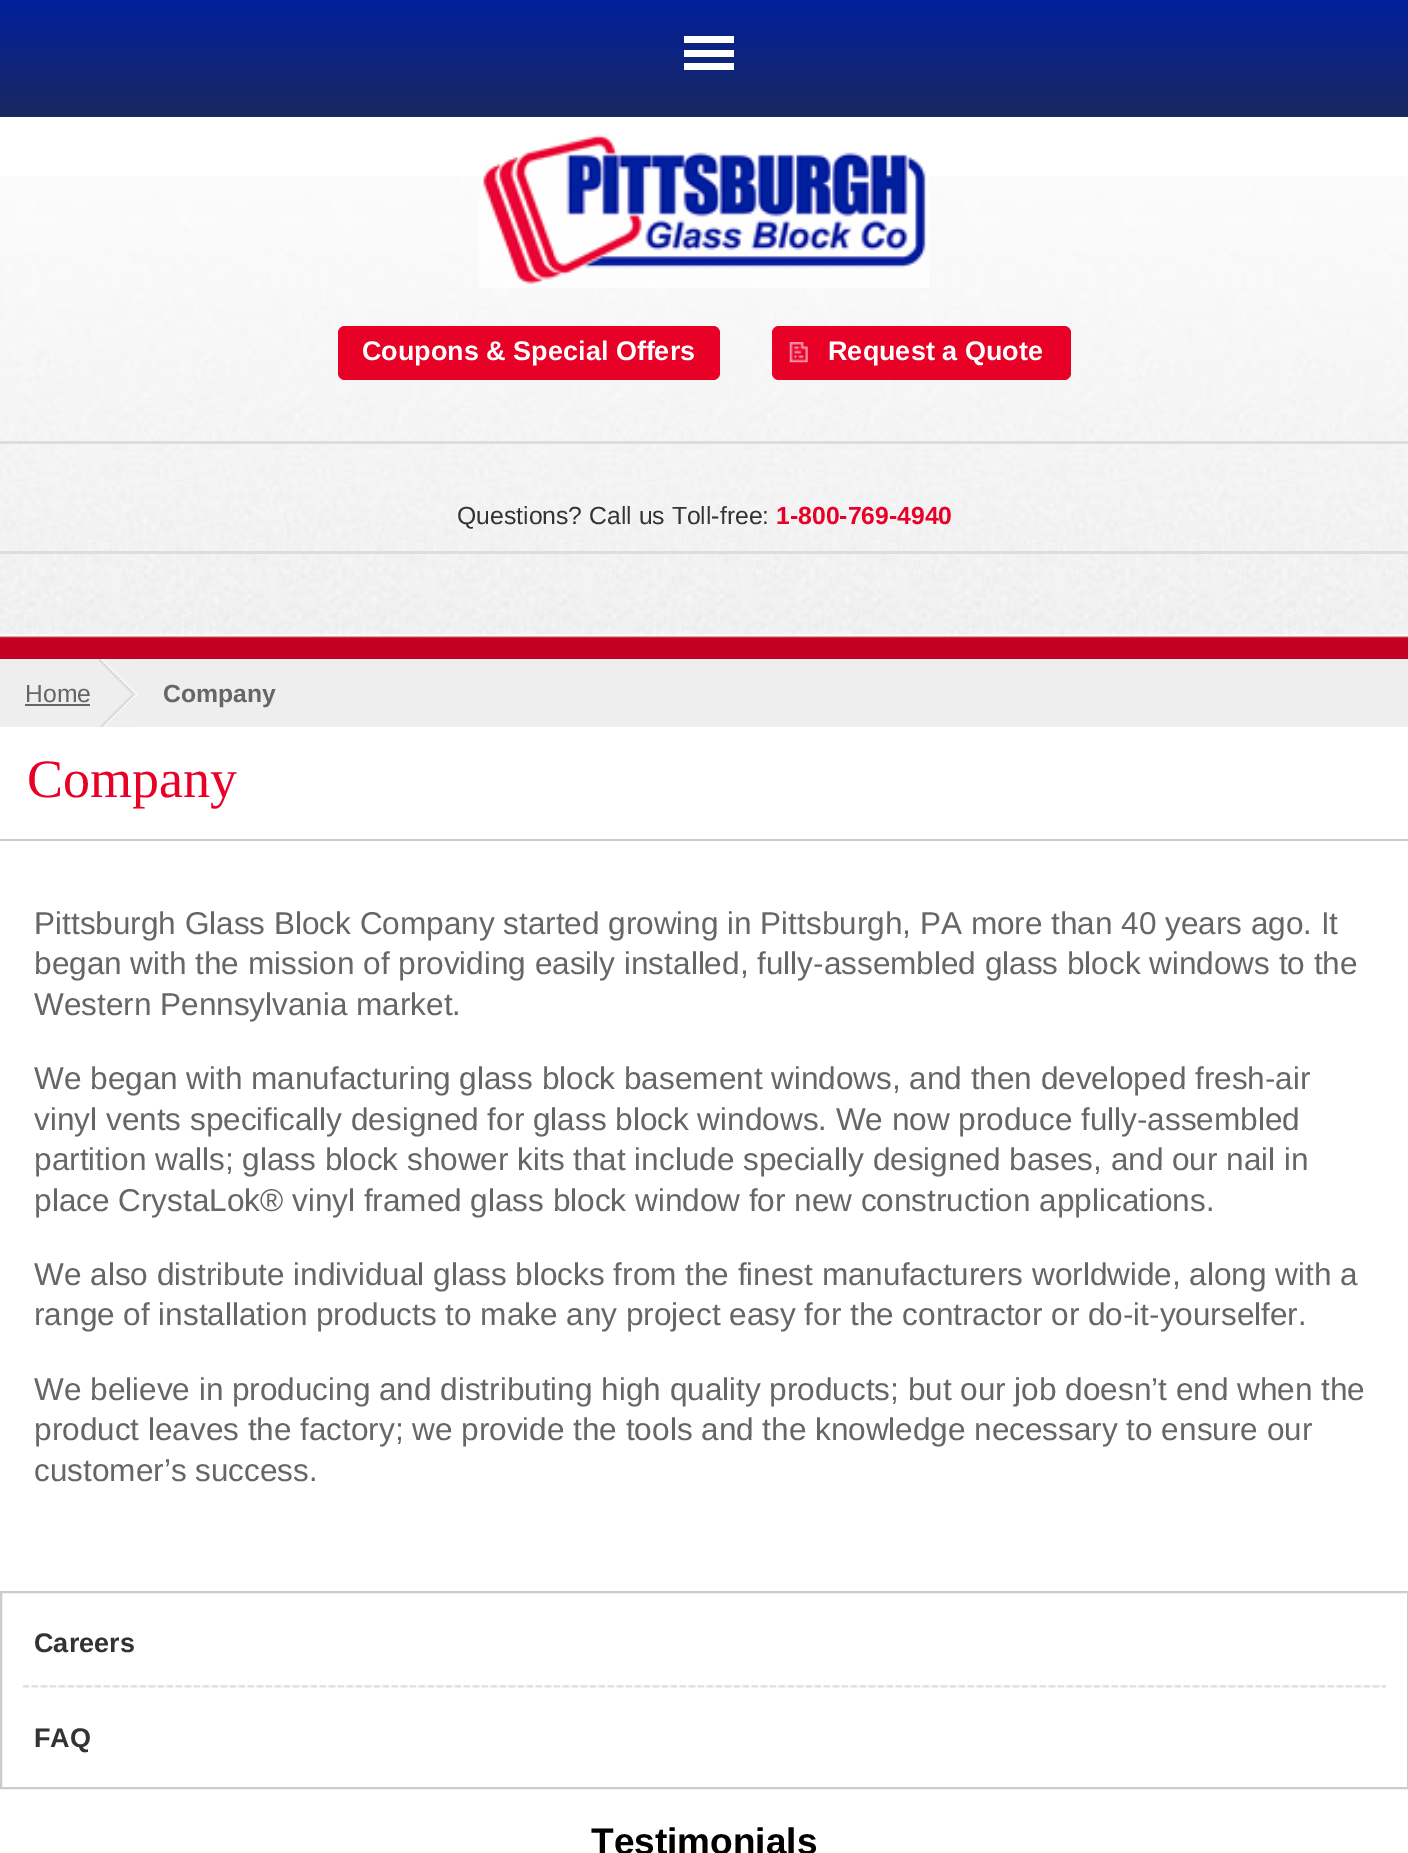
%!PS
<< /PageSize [1408 1853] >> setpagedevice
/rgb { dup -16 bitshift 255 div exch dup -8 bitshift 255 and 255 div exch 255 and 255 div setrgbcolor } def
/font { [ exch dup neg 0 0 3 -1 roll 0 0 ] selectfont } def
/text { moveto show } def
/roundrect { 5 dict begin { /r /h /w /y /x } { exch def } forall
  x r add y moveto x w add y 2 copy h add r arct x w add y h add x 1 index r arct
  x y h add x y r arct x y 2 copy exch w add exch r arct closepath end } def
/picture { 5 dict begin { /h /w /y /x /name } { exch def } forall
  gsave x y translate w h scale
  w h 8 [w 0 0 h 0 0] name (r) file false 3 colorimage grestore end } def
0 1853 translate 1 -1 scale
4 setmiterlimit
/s1 { /LiberationSans-Bold 27 font 16#FFFFFF rgb } def
/s2 { /LiberationSans-Regular 24.75 font 16#333333 rgb } def
/s3 { /LiberationSans-Bold 24.75 font 16#E90026 rgb } def
/s4 { /LiberationSans-Regular 24.75 font 16#666666 rgb } def
/s5 { /LiberationSans-Bold 24.75 font 16#666666 rgb } def
/s6 { /LiberationSerif-Regular 54 font 16#E90026 rgb } def
/s7 { /LiberationSans-Regular 31.5 font 16#666666 rgb } def
/s8 { /LiberationSans-Bold 27 font 16#333333 rgb } def
/s9 { /LiberationSans-Bold 37 font 16#000000 rgb } def
16#FFFFFF rgb
0 0 1408 1853 rectfill
(pic1.raw) 0 176 1408 459 picture
gsave 0 0 moveto 1408 0 lineto 1408 117 lineto 0 117 lineto closepath clip newpath
<< /ShadingType 2 /ColorSpace /DeviceRGB /Coords [704 0 704 117] /Extend [true true] /Function << /FunctionType 2 /Domain [0 1] /C0 [0.004 0.125 0.616] /C1 [0.098 0.157 0.373] /N 1 >> >> shfill grestore
684 36 50 7 rectfill
684 50 50 7 rectfill
684 63 50 7 rectfill
(pic2.raw) 479 134 450 154 picture
16#E90026 rgb
338 326 382 54 7 roundrect fill
s1
(Coupons & Special Offers) 362 360 text
16#E90026 rgb
772 326 299 54 7 roundrect fill
(pic3.raw) 789 342 19 21 picture
s1
(Request a Quote) 828 360 text
16#DDDDDD rgb
0 441 1408 3 rectfill
s2
(Questions? Call us Toll-free:) 457 524 text
s3
(1-800-769-4940) 776 524 text
16#DDDDDD rgb
0 551 1408 3 rectfill
(pic4.raw) 0 634 1408 25 picture
16#EEEEEE rgb
0 659 1408 68 rectfill
s4
(Home) 25 702 text
25 704 65 2 rectfill
(pic5.raw) 98 659 39 68 picture
s5
(Company) 163 702 text
16#CCCCCC rgb
0 839 1408 2 rectfill
s6
(Company) 27 797 text
s7
(Pittsburgh Glass Block Company started growing in Pittsburgh, PA more than 40 years ago. It) 34 934 text
(began with the mission of providing easily installed, fully-assembled glass block windows to the) 34 974 text
(Western Pennsylvania market.) 34 1015 text
(We began with manufacturing glass block basement windows, and then developed fresh-air) 34 1089 text
(vinyl vents specifically designed for glass block windows. We now produce fully-assembled) 34 1130 text
(partition walls; glass block shower kits that include specially designed bases, and our nail in) 34 1170 text
(place CrystaLok® vinyl framed glass block window for new construction applications.) 34 1211 text
(We also distribute individual glass blocks from the finest manufacturers worldwide, along with a) 34 1285 text
(range of installation products to make any project easy for the contractor or do-it-yourselfer.) 34 1325 text
(We believe in producing and distributing high quality products; but our job doesn’t end when the) 34 1400 text
(product leaves the factory; we provide the tools and the knowledge necessary to ensure our) 34 1440 text
(customer’s success.) 34 1481 text
16#CCCCCC rgb
2 setlinewidth
1 1592 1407 196 rectstroke
(pic6.raw) 22 1685 1364 3 picture
s8
(Careers) 34 1652 text
(FAQ) 34 1747 text
s9
(Testimonials) 591 1854 text
showpage
